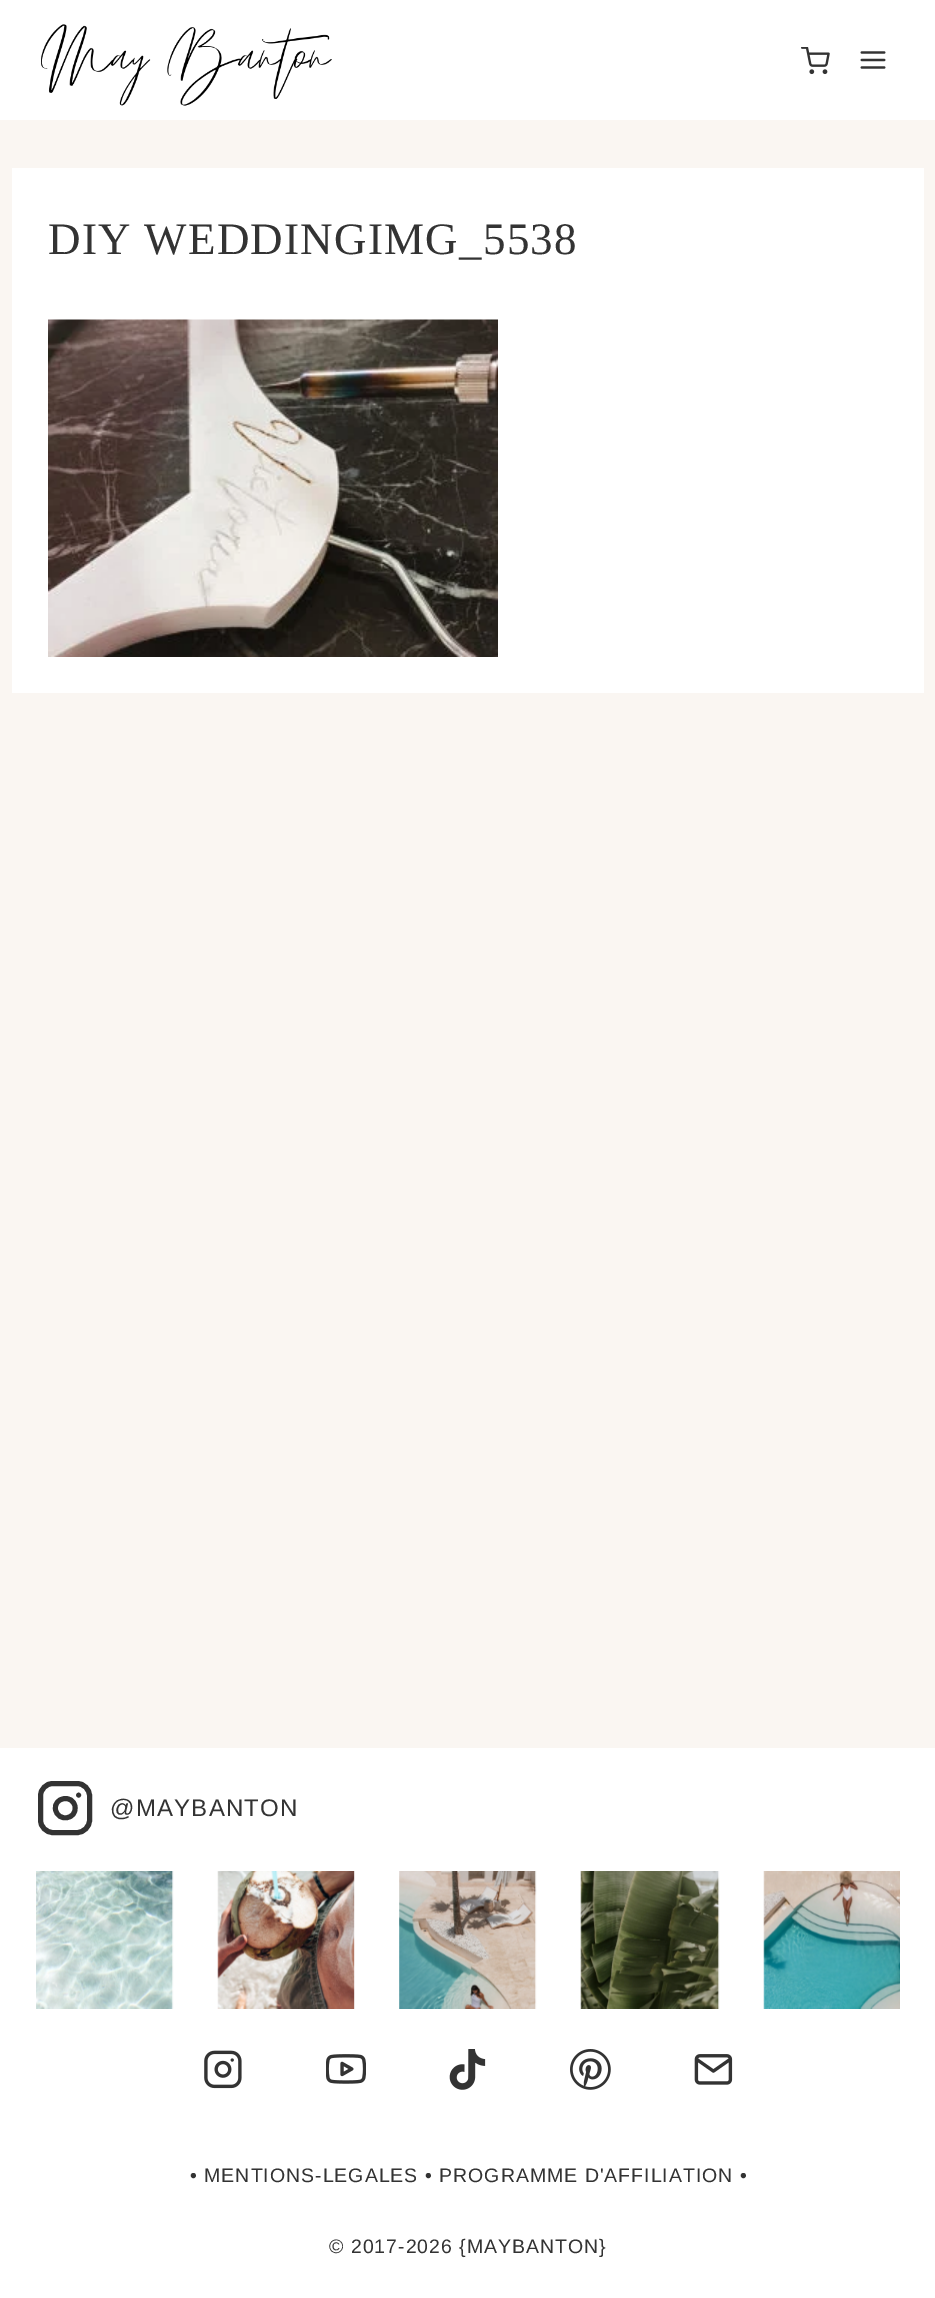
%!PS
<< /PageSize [935 2298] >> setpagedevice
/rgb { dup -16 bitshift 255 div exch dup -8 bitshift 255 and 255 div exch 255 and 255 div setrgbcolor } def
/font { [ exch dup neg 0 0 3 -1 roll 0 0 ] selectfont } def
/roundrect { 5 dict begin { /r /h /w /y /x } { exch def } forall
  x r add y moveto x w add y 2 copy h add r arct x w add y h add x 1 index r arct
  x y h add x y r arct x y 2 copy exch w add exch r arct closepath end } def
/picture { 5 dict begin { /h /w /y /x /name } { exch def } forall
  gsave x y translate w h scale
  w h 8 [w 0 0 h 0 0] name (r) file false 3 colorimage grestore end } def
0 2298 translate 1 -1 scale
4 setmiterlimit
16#FAF6F2 rgb
0 0 935 2298 rectfill
16#FFFFFF rgb
0 0 935 120 rectfill
(pic1.raw) 41 24 291 82 picture
(pic2.raw) 801 47 29 28 picture
(pic3.raw) 860 51 26 18 picture
12 168 912 525 rectfill
/LiberationSerif-Regular 45 font
16#333333 rgb
48 254 moveto 1.25 0 (DIY WEDDINGIMG_5538) ashow
(pic4.raw) 48 319 450 338 picture
16#FFFFFF rgb
0 1748 935 550 rectfill
16#333333 rgb
5 setlinewidth
40.5 1783.5 49 49 12.5 roundrect stroke
4.9 setlinewidth
1 setlinecap
1 setlinejoin
75 1806.5 moveto 77 1819.5 58 1822.5 55.5 1809.5 curveto 53.5 1797 73 1794 75 1806.5 curveto closepath 78.5 1795 moveto 78.5 1795 lineto stroke
/LiberationSans-Regular 24 font
110 1816 moveto 1.25 0 (@MAYBANTON) ashow
(pic5.raw) 36 1871 138 138 picture
(pic6.raw) 217 1871 138 138 picture
(pic7.raw) 399 1871 138 138 picture
(pic8.raw) 580 1871 140 138 picture
(pic9.raw) 763 1871 137 138 picture
(pic10.raw) 204 2050 38 39 picture
(pic11.raw) 326 2054 40 30 picture
(pic12.raw) 449 2049 37 41 picture
(pic13.raw) 570 2049 41 41 picture
(pic14.raw) 694 2054 39 31 picture
/LiberationSans-Regular 19.5 font
190 2182 moveto 1 0 (• MENTIONS-LEGALES • PROGRAMME D'AFFILIATION •) ashow
329 2253 moveto 1 0 (© 2017-2026 {MAYBANTON}) ashow
showpage
